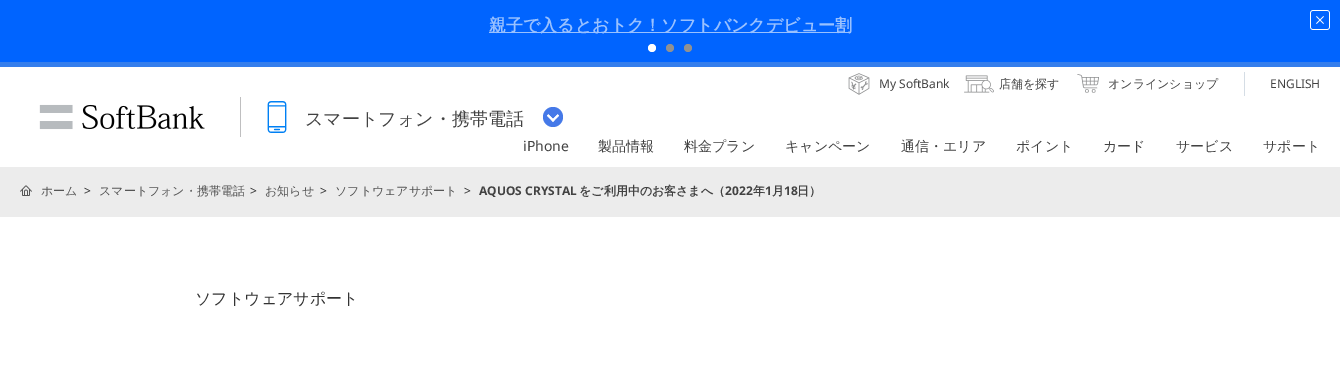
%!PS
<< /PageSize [1340 383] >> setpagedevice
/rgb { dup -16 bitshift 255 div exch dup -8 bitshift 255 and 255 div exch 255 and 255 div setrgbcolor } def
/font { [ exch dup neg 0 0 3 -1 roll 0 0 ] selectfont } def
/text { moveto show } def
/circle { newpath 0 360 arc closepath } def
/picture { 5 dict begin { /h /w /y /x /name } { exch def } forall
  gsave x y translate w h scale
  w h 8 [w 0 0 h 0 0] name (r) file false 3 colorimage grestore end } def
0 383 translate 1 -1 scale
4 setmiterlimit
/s1 { /WenQuanYiZenHei-Bold 17 font 16#99C1FF rgb } def
/s2 { /NotoSans-Regular 12 font 16#424242 rgb } def
/s3 { /WenQuanYiZenHei-Medium 12 font 16#424242 rgb } def
/s4 { /WenQuanYiZenHei-Medium 18 font 16#424242 rgb } def
/s5 { /NotoSans-Regular 14 font 16#424242 rgb } def
/s6 { /WenQuanYiZenHei-Medium 14 font 16#424242 rgb } def
/s7 { /WenQuanYiZenHei-Medium 12 font 16#555555 rgb } def
/s8 { /NotoSans-Regular 12 font 16#333333 rgb } def
/s9 { /NotoSans-Bold 12 font 16#424242 rgb } def
/s10 { /WenQuanYiZenHei-Bold 12 font 16#424242 rgb } def
/s11 { /WenQuanYiZenHei-Medium 16 font 16#333333 rgb } def
16#FFFFFF rgb
0 0 1340 383 rectfill
16#0064FF rgb
0 0 1340 62 rectfill
16#99C1FF rgb
489 32 362 1 rectfill
s1
(親子で入るとおトク！ソフトバンクデビュー割) 489 31 text
(pic1.raw) 1310 10 20 20 picture
16#FFFFFF rgb
652 48 4 circle fill
16#919191 rgb
670 48 4 circle fill
688 48 4 circle fill
16#357EEC rgb
0 62 1340 5 rectfill
(pic2.raw) 848 73 22 22 picture
s2
(My SoftBank) 879 88 text
(pic3.raw) 964 75 30 18 picture
s3
(店舗を探す) 999 88 text
(pic4.raw) 1077 74 22 19 picture
(オンラインショップ) 1108 88 text
16#D5DDE5 rgb
1244 72 1 24 rectfill
s2
(ENGLISH) 1270 88 text
(pic5.raw) 39 104 166 26 picture
16#BFBFC0 rgb
240 97 1 40 rectfill
(pic6.raw) 267 101 20 32 picture
s4
(スマートフォン・携帯電話) 305 125 text
16#4579E8 rgb
553 117 10 circle fill
(pic7.raw) 547 114 12 8 picture
s5
(iPhone) 523 151 text
s6
(製品情報) 598 151 text
(料金プラン) 684 151 text
(キャンペーン) 785 151 text
(通信・エリア) 901 151 text
(ポイント) 1016 151 text
(カード) 1103 151 text
(サービス) 1176 151 text
(サポート) 1263 151 text
16#ECECEC rgb
0 167 1340 50 rectfill
(pic8.raw) 20 185 12 11 picture
s7
(ホーム) 41 195 text
s8
(>) 84 195 text
s7
(スマートフォン・携帯電話) 99 195 text
s8
(>) 250 195 text
s7
(お知らせ) 265 195 text
s8
(>) 320 195 text
s7
(ソフトウェアサポート) 335 195 text
s8
(>) 464 195 text
s9
(AQUOS CRYSTAL) 479 195 text
s10
(をご利用中のお客さまへ（) 579 195 text
s9
(2022) 725 195 text
s10
(年) 753 195 text
s9
(1) 765 195 text
s10
(月) 772 195 text
s9
(18) 784 195 text
s10
(日）) 797 195 text
s11
(ソフトウェアサポート) 195 304 text
showpage
